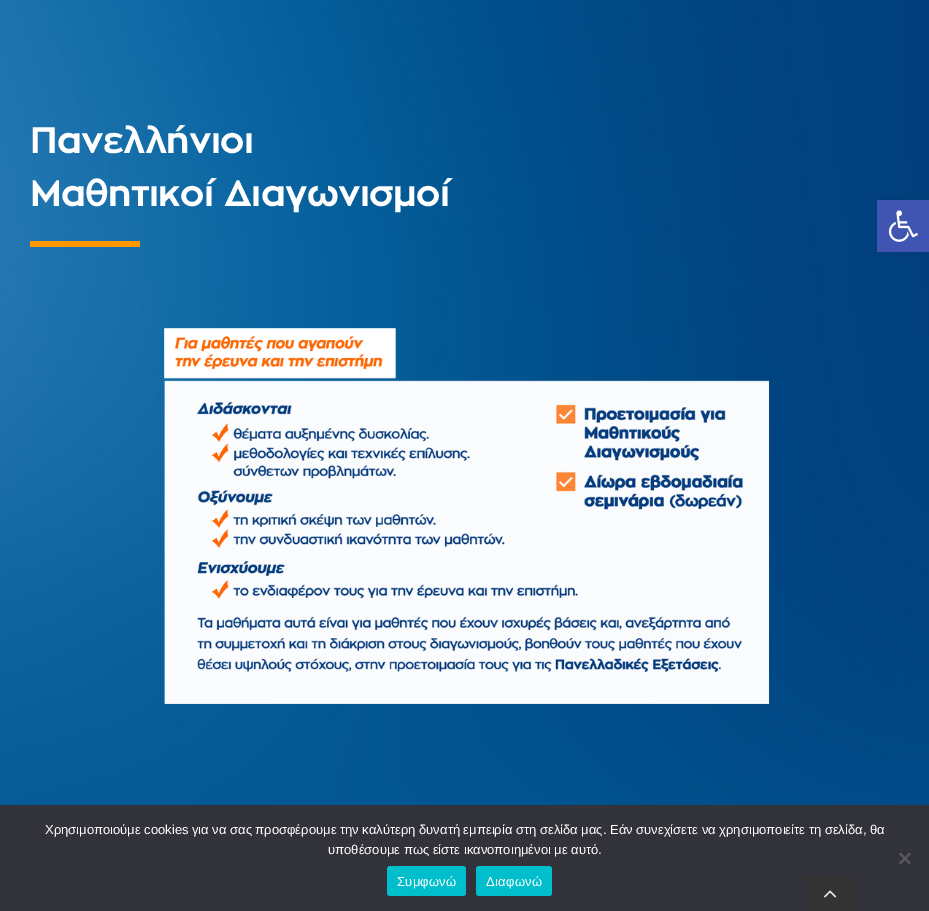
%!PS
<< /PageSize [929 911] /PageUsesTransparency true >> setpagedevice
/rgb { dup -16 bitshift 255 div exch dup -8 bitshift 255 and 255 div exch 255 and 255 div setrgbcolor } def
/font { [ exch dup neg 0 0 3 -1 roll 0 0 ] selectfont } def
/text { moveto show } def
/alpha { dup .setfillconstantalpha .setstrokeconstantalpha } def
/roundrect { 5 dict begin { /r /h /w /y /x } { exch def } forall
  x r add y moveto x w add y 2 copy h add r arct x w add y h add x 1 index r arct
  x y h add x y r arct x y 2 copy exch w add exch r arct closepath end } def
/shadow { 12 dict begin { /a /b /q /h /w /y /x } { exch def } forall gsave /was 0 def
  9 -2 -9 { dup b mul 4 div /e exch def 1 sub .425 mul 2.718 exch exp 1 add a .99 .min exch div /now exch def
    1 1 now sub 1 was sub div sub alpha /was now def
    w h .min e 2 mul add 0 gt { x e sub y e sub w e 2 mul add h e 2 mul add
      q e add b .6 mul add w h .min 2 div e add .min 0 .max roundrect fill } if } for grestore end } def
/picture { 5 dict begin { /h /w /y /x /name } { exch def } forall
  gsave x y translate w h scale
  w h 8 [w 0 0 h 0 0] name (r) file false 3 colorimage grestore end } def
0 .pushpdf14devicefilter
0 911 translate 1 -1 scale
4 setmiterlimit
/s1 { /LiberationSans-Regular 13 font 16#FFFFFF rgb } def
16#FFFFFF rgb
0 0 929 911 rectfill
(pic1.raw) 0 0 929 805 picture
/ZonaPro-Bold 36.5 font
30 153 moveto -0.6 0 (Πανελλήνιοι) ashow
30 206 moveto -0.6 0 (Μαθητικοί Διαγωνισμοί) ashow
16#FF9800 rgb
30 241 110 6 rectfill
(pic2.raw) 164 328 606 376 picture
16#000000 rgb
877 200 52 52 0 5 0.1 shadow
16#4054B2 rgb
877 200 52 52 rectfill
(pic3.raw) 888 210 30 32 picture
16#32323A rgb
0 805 929 106 rectfill
s1
(Χρησιμοποιούμε cookies για να σας προσφέρουμε την καλύτερη δυνατή εμπειρία στη σελίδα μας. Εάν συνεχίσετε να χρησιμοποιείτε τη σελίδα, θα) 45 834 text
(υποθέσουμε πως είστε ικανοποιημένοι με αυτό.) 328 854 text
16#59595D rgb
909.5 852.5 moveto 911 854 lineto 900.5 864.5 lineto 899 863 lineto closepath fill
899 854 moveto 900.5 852.5 lineto 911 863 lineto 909.5 864.5 lineto closepath fill
16#00BECC rgb
387 866 79 30 3 roundrect fill
16#FFFFFF rgb
397 886 moveto 0.25 0 (Συμφωνώ) ashow
16#00BECC rgb
476 866 76 30 3 roundrect fill
16#FFFFFF rgb
486 886 moveto 0.25 0 (Διαφωνώ) ashow
16#333334 rgb
810 876 moveto 850 876 lineto 852 876 854 878 854 880 curveto 854 911 lineto 806 911 lineto 806 880 lineto 806 878 808 876 810 876 curveto closepath fill
(pic4.raw) 824 890 13 8 picture
.poppdf14devicefilter showpage
